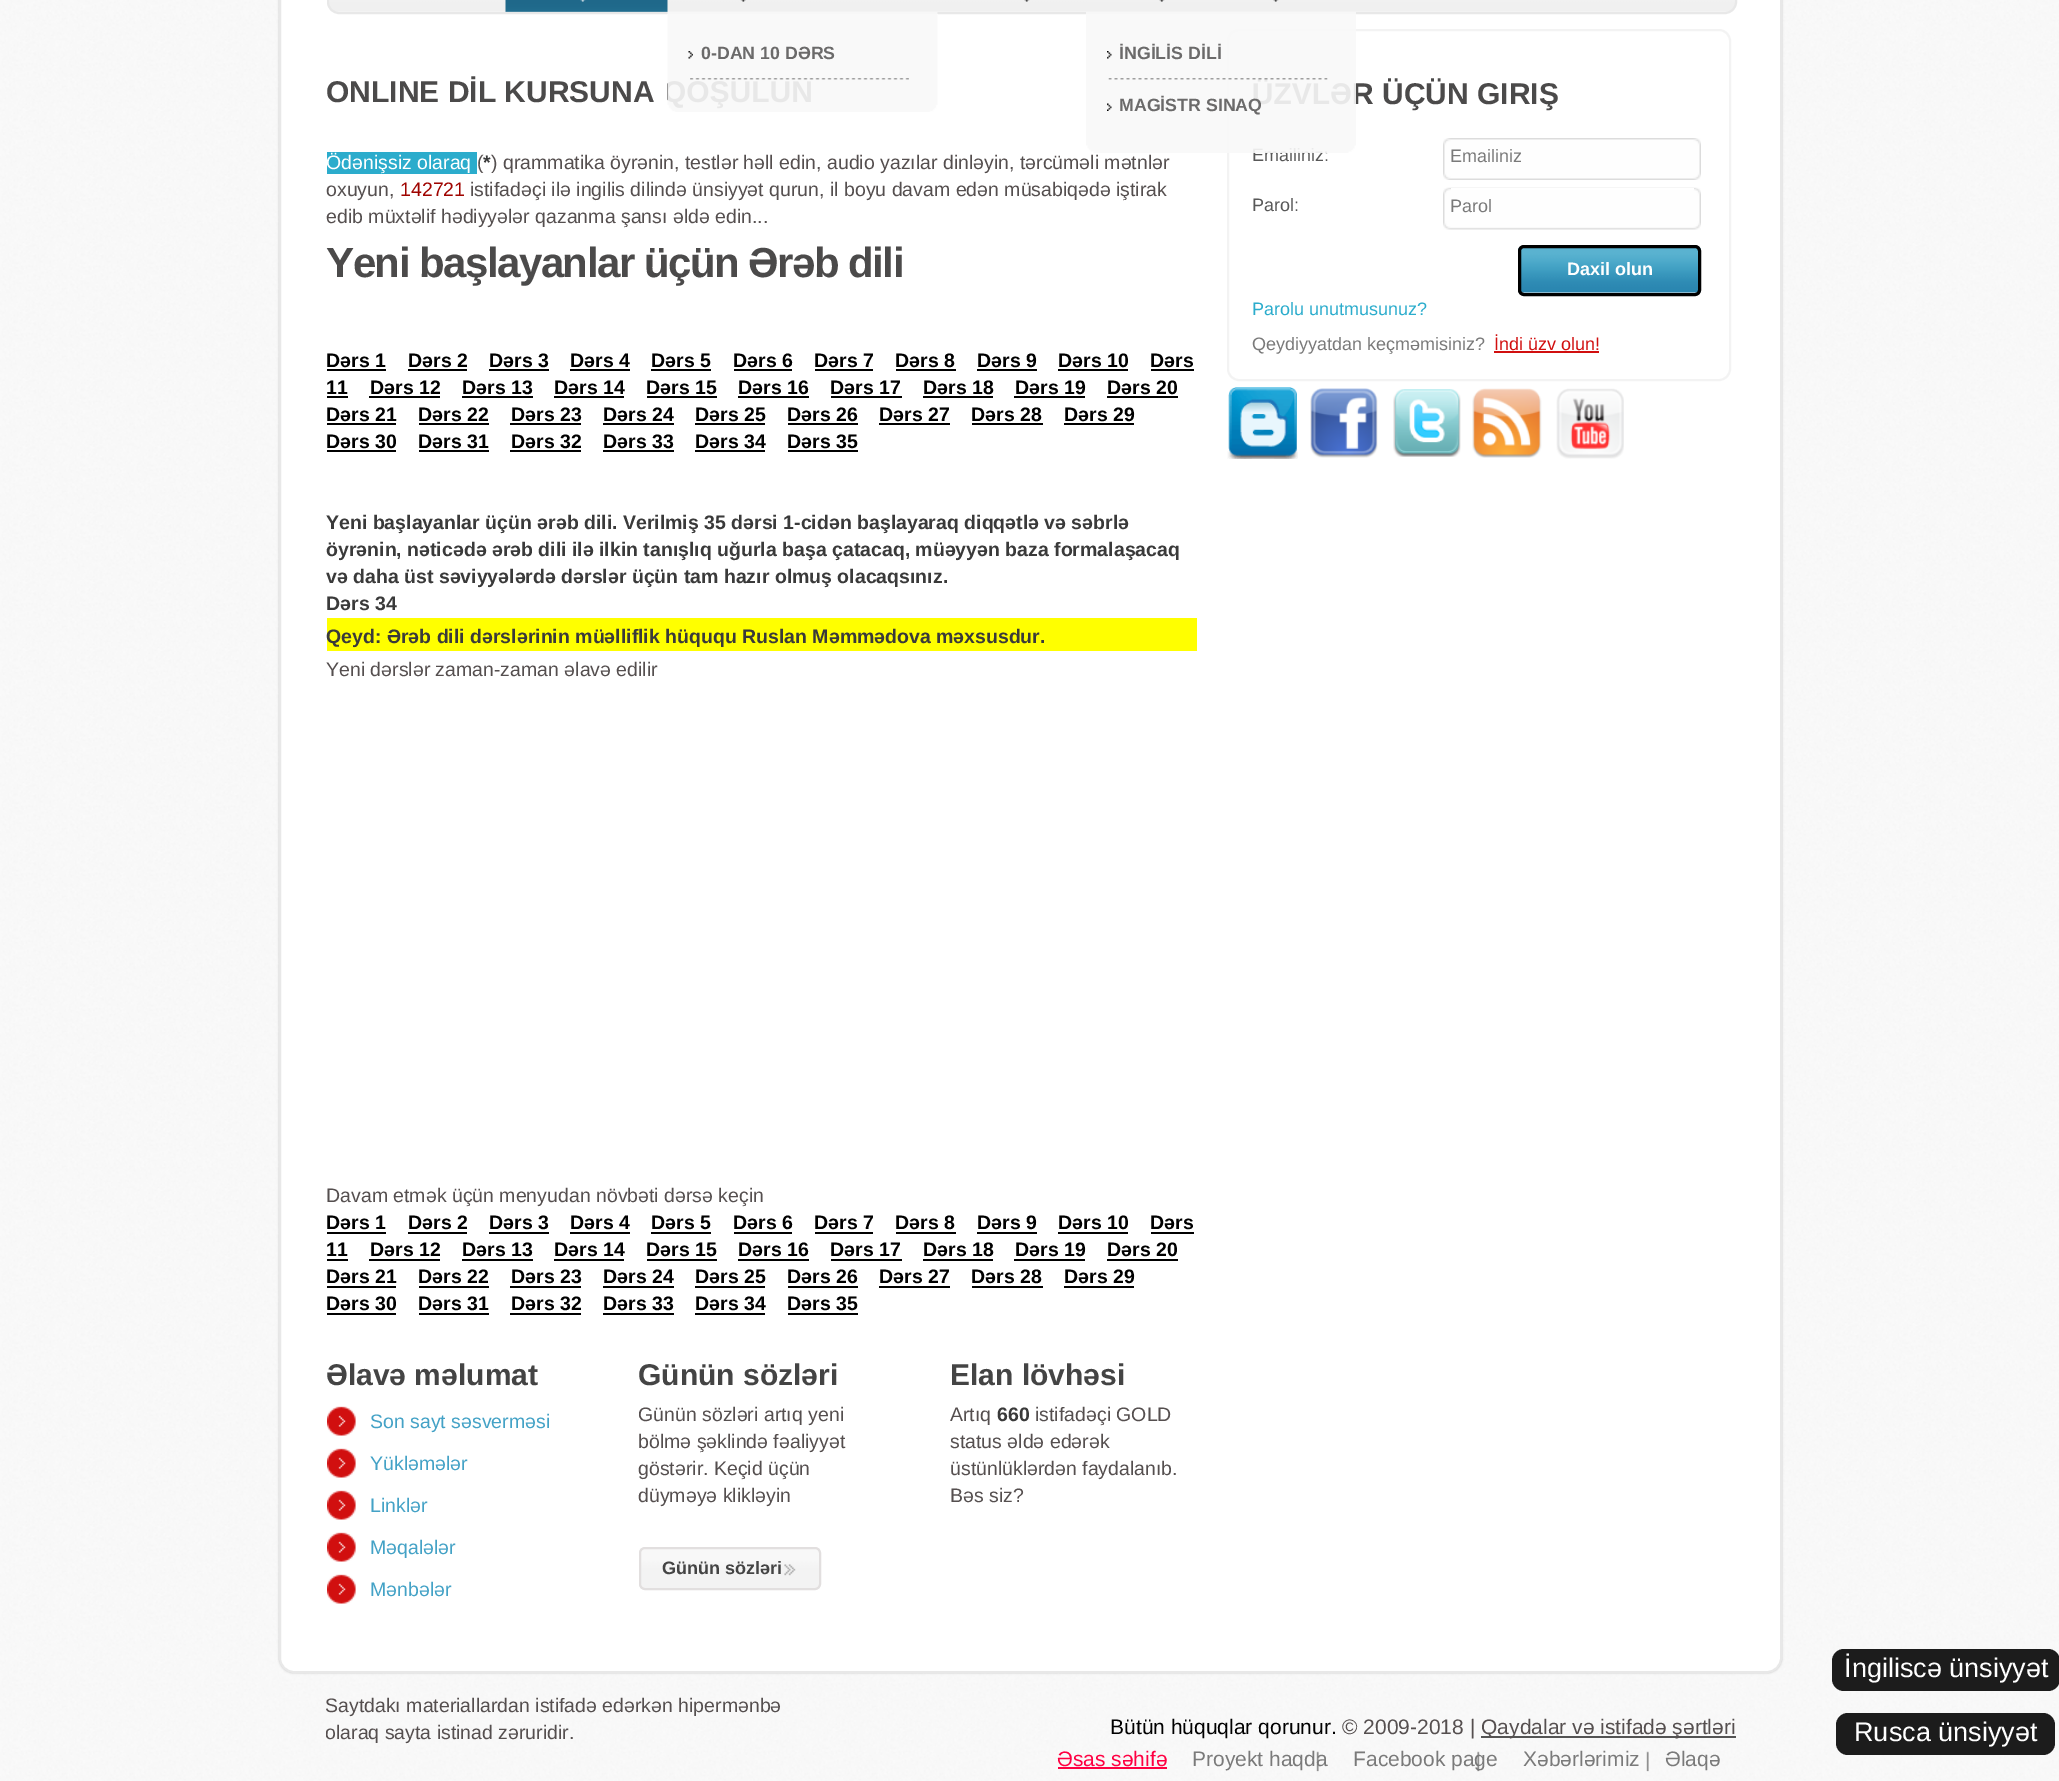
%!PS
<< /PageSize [2059 1781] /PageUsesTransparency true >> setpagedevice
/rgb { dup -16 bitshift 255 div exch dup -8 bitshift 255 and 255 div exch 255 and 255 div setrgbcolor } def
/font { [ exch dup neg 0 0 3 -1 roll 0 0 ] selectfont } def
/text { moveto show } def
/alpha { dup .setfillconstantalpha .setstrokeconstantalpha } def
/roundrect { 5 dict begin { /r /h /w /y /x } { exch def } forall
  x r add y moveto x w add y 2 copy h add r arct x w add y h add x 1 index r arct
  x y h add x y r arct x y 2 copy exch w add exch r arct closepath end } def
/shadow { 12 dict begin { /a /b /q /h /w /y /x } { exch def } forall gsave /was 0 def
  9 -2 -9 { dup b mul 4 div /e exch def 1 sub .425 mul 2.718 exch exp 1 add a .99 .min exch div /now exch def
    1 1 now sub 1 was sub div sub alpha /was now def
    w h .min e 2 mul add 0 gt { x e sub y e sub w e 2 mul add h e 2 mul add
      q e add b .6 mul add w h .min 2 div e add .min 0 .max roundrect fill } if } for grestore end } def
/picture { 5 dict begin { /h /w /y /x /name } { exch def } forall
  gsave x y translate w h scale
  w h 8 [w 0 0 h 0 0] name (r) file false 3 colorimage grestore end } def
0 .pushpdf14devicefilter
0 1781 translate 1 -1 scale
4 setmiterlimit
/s1 { /LiberationSans-Bold 17.75 font 16#6B6A6A rgb } def
/s2 { /LiberationSans-Bold 30 font 16#4B4A4A rgb } def
/s3 { /LiberationSans-Regular 18 font 16#585858 rgb } def
/s4 { /LiberationSans-Regular 19.5 font 16#FFFFFF rgb } def
/s5 { /LiberationSans-Regular 19.5 font 16#554F4F rgb } def
/s6 { /LiberationSans-Bold 19.5 font 16#3A3A3A rgb } def
/s7 { /LiberationSans-Regular 19.5 font 16#9F0400 rgb } def
/s8 { /LiberationSans-Bold 19.5 font 16#000000 rgb } def
/s9 { /LiberationSans-Bold 30 font 16#444444 rgb } def
/s10 { /LiberationSans-Regular 19.5 font 16#44A2C6 rgb } def
/s11 { /LiberationSans-Bold 18 font 16#444444 rgb } def
/s12 { /LiberationSans-Regular 18 font 16#7A7A7A rgb } def
/s13 { /LiberationSans-Bold 18 font 16#FFFFFF rgb } def
/s14 { /LiberationSans-Regular 18 font 16#2BACCC rgb } def
/s15 { /LiberationSans-Regular 18 font 16#D10F0F rgb } def
/s16 { /LiberationSans-Regular 21 font 16#000000 rgb } def
/s17 { /LiberationSans-Regular 21 font 16#554F4F rgb } def
/s18 { /LiberationSans-Regular 21 font 16#FF0042 rgb } def
/s19 { /LiberationSans-Regular 21 font 16#7A7A7A rgb } def
/s20 { /LiberationSans-Regular 27 font 16#FFFFFF rgb } def
16#FFFFFF rgb
0 0 2059 1781 rectfill
(pic1.raw) 0 0 2059 1781 picture
16#000000 rgb
279 -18 1503 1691 15 1 0.2 shadow
16#FFFFFF rgb
280 -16 1501 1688 14 roundrect gsave fill grestore
16#E8E8E8 rgb
2 setlinewidth
stroke
(pic2.raw) 327 0 1410 12 picture
328 -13 1408 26 11 roundrect stroke
(pic3.raw) 505 0 163 12 picture
(pic4.raw) 580 0 6 2 picture
(pic5.raw) 1024 0 6 2 picture
(pic5.raw) 1273 0 6 2 picture
(pic6.raw) 740 0 6 2 picture
(pic7.raw) 667 12 271 100 picture
(pic8.raw) 690 78 219 2 picture
(pic9.raw) 688 51 5 8 picture
s1
(0-DAN 10 DƏRS) 701 59 text
(pic10.raw) 1159 0 6 2 picture
16#F3F3F3 rgb
1228 30 502 350 11 roundrect stroke
s2
(R ÜÇÜN GIRIŞ) 1352 104 text
s3
(Emailiniz:) 1252 161 text
(pic11.raw) 1086 12 270 141 picture
(pic12.raw) 1108 78 220 2 picture
(pic13.raw) 1107 51 5 8 picture
s1
(İNGİLİS DİLİ) 1119 59 text
(pic14.raw) 1107 103 5 8 picture
(MAGİSTR SINAQ) 1119 111 text
s2
(ONLINE DİL KURSUNA) 326 102 text
16#2BACCC rgb
327 152 150 22 rectfill
s4
(Ödənişsiz olaraq) 326 169 text
s5
(\() 477 169 text
s6
(*) 483 169 text
s5
(\) qrammatika öyrənin, testlər həll edin, audio yazılar dinləyin, tərcüməli mətnlər) 491 169 text
(oxuyun,) 326 196 text
s7
(142721) 400 196 text
s5
(istifadəçi ilə ingilis dilində ünsiyyət qurun, il boyu davam edən müsabiqədə iştirak) 470 196 text
(edib müxtəlif hədiyyələr qazanma şansı əldə edin...) 326 223 text
/LiberationSans-Bold 42 font
16#4B4A4A rgb
326 277 moveto -1.5 0 (Yeni başlayanlar üçün) ashow
748 277 moveto -1.5 0 (Ərəb dili) ashow
s8
(Dərs 1) 326 367 text
327 369 59 2 rectfill
(Dərs 2) 408 367 text
408 369 59 2 rectfill
(Dərs 3) 489 367 text
489 369 60 2 rectfill
(Dərs 4) 570 367 text
570 369 60 2 rectfill
(Dərs 5) 651 367 text
651 369 60 2 rectfill
(Dərs 6) 733 367 text
734 369 58 2 rectfill
(Dərs 7) 814 367 text
815 369 58 2 rectfill
(Dərs 8) 895 367 text
896 369 60 2 rectfill
(Dərs 9) 977 367 text
977 369 60 2 rectfill
(Dərs 10) 1058 367 text
1058 369 70 2 rectfill
(Dərs) 1150 367 text
1151 369 43 2 rectfill
(11) 326 394 text
327 396 21 2 rectfill
(Dərs 12) 370 394 text
369 396 71 2 rectfill
(Dərs 13) 462 394 text
462 396 71 2 rectfill
(Dərs 14) 554 394 text
554 396 70 2 rectfill
(Dərs 15) 646 394 text
647 396 70 2 rectfill
(Dərs 16) 738 394 text
738 396 71 2 rectfill
(Dərs 17) 830 394 text
831 396 71 2 rectfill
(Dərs 18) 923 394 text
923 396 70 2 rectfill
(Dərs 19) 1015 394 text
1014 396 71 2 rectfill
(Dərs 20) 1107 394 text
1107 396 71 2 rectfill
(Dərs 21) 326 421 text
327 423 69 2 rectfill
(Dərs 22) 418 421 text
419 423 70 2 rectfill
(Dərs 23) 511 421 text
510 423 71 2 rectfill
(Dərs 24) 603 421 text
603 423 71 2 rectfill
(Dərs 25) 695 421 text
695 423 70 2 rectfill
(Dərs 26) 787 421 text
788 423 70 2 rectfill
(Dərs 27) 879 421 text
879 423 71 2 rectfill
(Dərs 28) 971 421 text
972 423 71 2 rectfill
(Dərs 29) 1064 421 text
1064 423 70 2 rectfill
(Dərs 30) 326 448 text
327 450 69 2 rectfill
(Dərs 31) 418 448 text
419 450 70 2 rectfill
(Dərs 32) 511 448 text
510 450 71 2 rectfill
(Dərs 33) 603 448 text
603 450 71 2 rectfill
(Dərs 34) 695 448 text
695 450 70 2 rectfill
(Dərs 35) 787 448 text
788 450 70 2 rectfill
s6
(Yeni başlayanlar üçün ərəb dili. Verilmiş 35 dərsi 1-cidən başlayaraq diqqətlə və səbrlə) 326 529 text
(öyrənin, nəticədə ərəb dili ilə ilkin tanışlıq uğurla başa çatacaq, müəyyən baza formalaşacaq) 326 556 text
(və daha üst səviyyələrdə dərslər üçün tam hazır olmuş olacaqsınız.) 326 583 text
(Dərs 34) 326 610 text
16#FFFF00 rgb
327 618 870 33 rectfill
s6
(Qeyd: Ərəb dili dərslərinin müəlliflik hüququ Ruslan Məmmədova məxsusdur.) 326 643 text
s5
(Yeni dərslər zaman-zaman əlavə edilir) 326 676 text
(Davam etmək üçün menyudan növbəti dərsə keçin) 326 1202 text
s8
(Dərs 1) 326 1229 text
327 1232 59 2 rectfill
(Dərs 2) 408 1229 text
408 1232 59 2 rectfill
(Dərs 3) 489 1229 text
489 1232 60 2 rectfill
(Dərs 4) 570 1229 text
570 1232 60 2 rectfill
(Dərs 5) 651 1229 text
651 1232 60 2 rectfill
(Dərs 6) 733 1229 text
734 1232 58 2 rectfill
(Dərs 7) 814 1229 text
815 1232 58 2 rectfill
(Dərs 8) 895 1229 text
896 1232 60 2 rectfill
(Dərs 9) 977 1229 text
977 1232 60 2 rectfill
(Dərs 10) 1058 1229 text
1058 1232 70 2 rectfill
(Dərs) 1150 1229 text
1151 1232 43 2 rectfill
(11) 326 1256 text
327 1259 21 2 rectfill
(Dərs 12) 370 1256 text
369 1259 71 2 rectfill
(Dərs 13) 462 1256 text
462 1259 71 2 rectfill
(Dərs 14) 554 1256 text
554 1259 70 2 rectfill
(Dərs 15) 646 1256 text
647 1259 70 2 rectfill
(Dərs 16) 738 1256 text
738 1259 71 2 rectfill
(Dərs 17) 830 1256 text
831 1259 71 2 rectfill
(Dərs 18) 923 1256 text
923 1259 70 2 rectfill
(Dərs 19) 1015 1256 text
1014 1259 71 2 rectfill
(Dərs 20) 1107 1256 text
1107 1259 71 2 rectfill
(Dərs 21) 326 1283 text
327 1286 69 2 rectfill
(Dərs 22) 418 1283 text
419 1286 70 2 rectfill
(Dərs 23) 511 1283 text
510 1286 71 2 rectfill
(Dərs 24) 603 1283 text
603 1286 71 2 rectfill
(Dərs 25) 695 1283 text
695 1286 70 2 rectfill
(Dərs 26) 787 1283 text
788 1286 70 2 rectfill
(Dərs 27) 879 1283 text
879 1286 71 2 rectfill
(Dərs 28) 971 1283 text
972 1286 71 2 rectfill
(Dərs 29) 1064 1283 text
1064 1286 70 2 rectfill
(Dərs 30) 326 1310 text
327 1313 69 2 rectfill
(Dərs 31) 418 1310 text
419 1313 70 2 rectfill
(Dərs 32) 511 1310 text
510 1313 71 2 rectfill
(Dərs 33) 603 1310 text
603 1313 71 2 rectfill
(Dərs 34) 695 1310 text
695 1313 70 2 rectfill
(Dərs 35) 787 1310 text
788 1313 70 2 rectfill
s9
(Əlavə məlumat) 326 1385 text
(pic15.raw) 327 1406 29 30 picture
s10
(Son sayt səsverməsi) 370 1428 text
(pic15.raw) 327 1448 29 30 picture
(Yükləmələr) 370 1470 text
(pic15.raw) 327 1490 29 30 picture
(Linklər) 370 1512 text
(pic15.raw) 327 1532 29 30 picture
(Məqalələr) 370 1554 text
(pic15.raw) 327 1574 29 30 picture
(Mənbələr) 370 1596 text
s9
(Günün sözləri) 638 1385 text
s5
(Günün sözləri artıq yeni) 638 1421 text
(bölmə şəklində fəaliyyət) 638 1448 text
(göstərir. Keçid üçün) 638 1475 text
(düyməyə klikləyin) 638 1502 text
(pic16.raw) 639 1548 181 42 picture
16#E2DFDF rgb
640 1548 180 41 5 roundrect stroke
(pic17.raw) 784 1564 12 12 picture
s11
(Günün sözləri) 662 1574 text
s9
(Elan lövhəsi) 950 1385 text
s5
(Artıq) 950 1421 text
s6
(660) 997 1421 text
s5
(istifadəçi GOLD) 1035 1421 text
(status əldə edərək) 950 1448 text
(üstünlüklərdən faydalanıb.) 950 1475 text
(Bəs siz?) 950 1502 text
(pic18.raw) 1443 138 258 42 picture
s12
(Emailiniz) 1450 162 text
s3
(Parol:) 1252 211 text
(pic19.raw) 1443 187 258 43 picture
16#FFFFFF rgb
1451 188 243 2 rectfill
s12
(Parol) 1450 212 text
16#EFEFEF rgb
1518 245 183 51 6 roundrect fill
(pic20.raw) 1518 247 183 46 picture
16#000000 rgb
3 setlinewidth
1519.5 246.5 180 48 4.5 roundrect stroke
s13
(Daxil olun) 1567 275 text
s14
(Parolu unutmusunuz?) 1252 315 text
s12
(Qeydiyyatdan keçməmisiniz?) 1252 350 text
s15
(İndi üzv olun!) 1494 350 text
1494 351 105 2 rectfill
(pic21.raw) 1227 387 71 72 picture
(pic22.raw) 1310 388 68 70 picture
(pic23.raw) 1393 389 68 68 picture
(pic24.raw) 1472 388 70 70 picture
(pic25.raw) 1556 388 68 71 picture
s5
(Saytdakı materiallardan istifadə edərkən hipermənbə) 325 1712 text
gsave
326 1692 1410 80 rectclip
(olaraq sayta istinad zəruridir.) 325 1739 text
grestore
s16
(Bütün hüquqlar qorunur.) 1110 1734 text
s17
(© 2009-2018 |) 1342 1734 text
16#535353 rgb
1481 1736 255 2 rectfill
s17
(Qaydalar və istifadə şərtləri) 1481 1734 text
s18
(Əsas səhifə) 1057 1766 text
1058 1767 109 2 rectfill
(pic26.raw) 1316 1751 3 21 picture
s19
(Proyekt haqda) 1192 1766 text
(pic27.raw) 1477 1751 3 21 picture
(Facebook page) 1353 1766 text
(pic28.raw) 1646 1751 3 21 picture
(Xəbərlərimiz) 1523 1766 text
(Əlaqə) 1665 1766 text
16#1C1C1C rgb
1832 1649 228 42 12 roundrect fill
s20
(İngiliscə ünsiyyət) 1844 1677 text
16#1C1C1C rgb
1836 1713 219 42 12 roundrect fill
s20
(Rusca ünsiyyət) 1854 1741 text
.poppdf14devicefilter showpage
